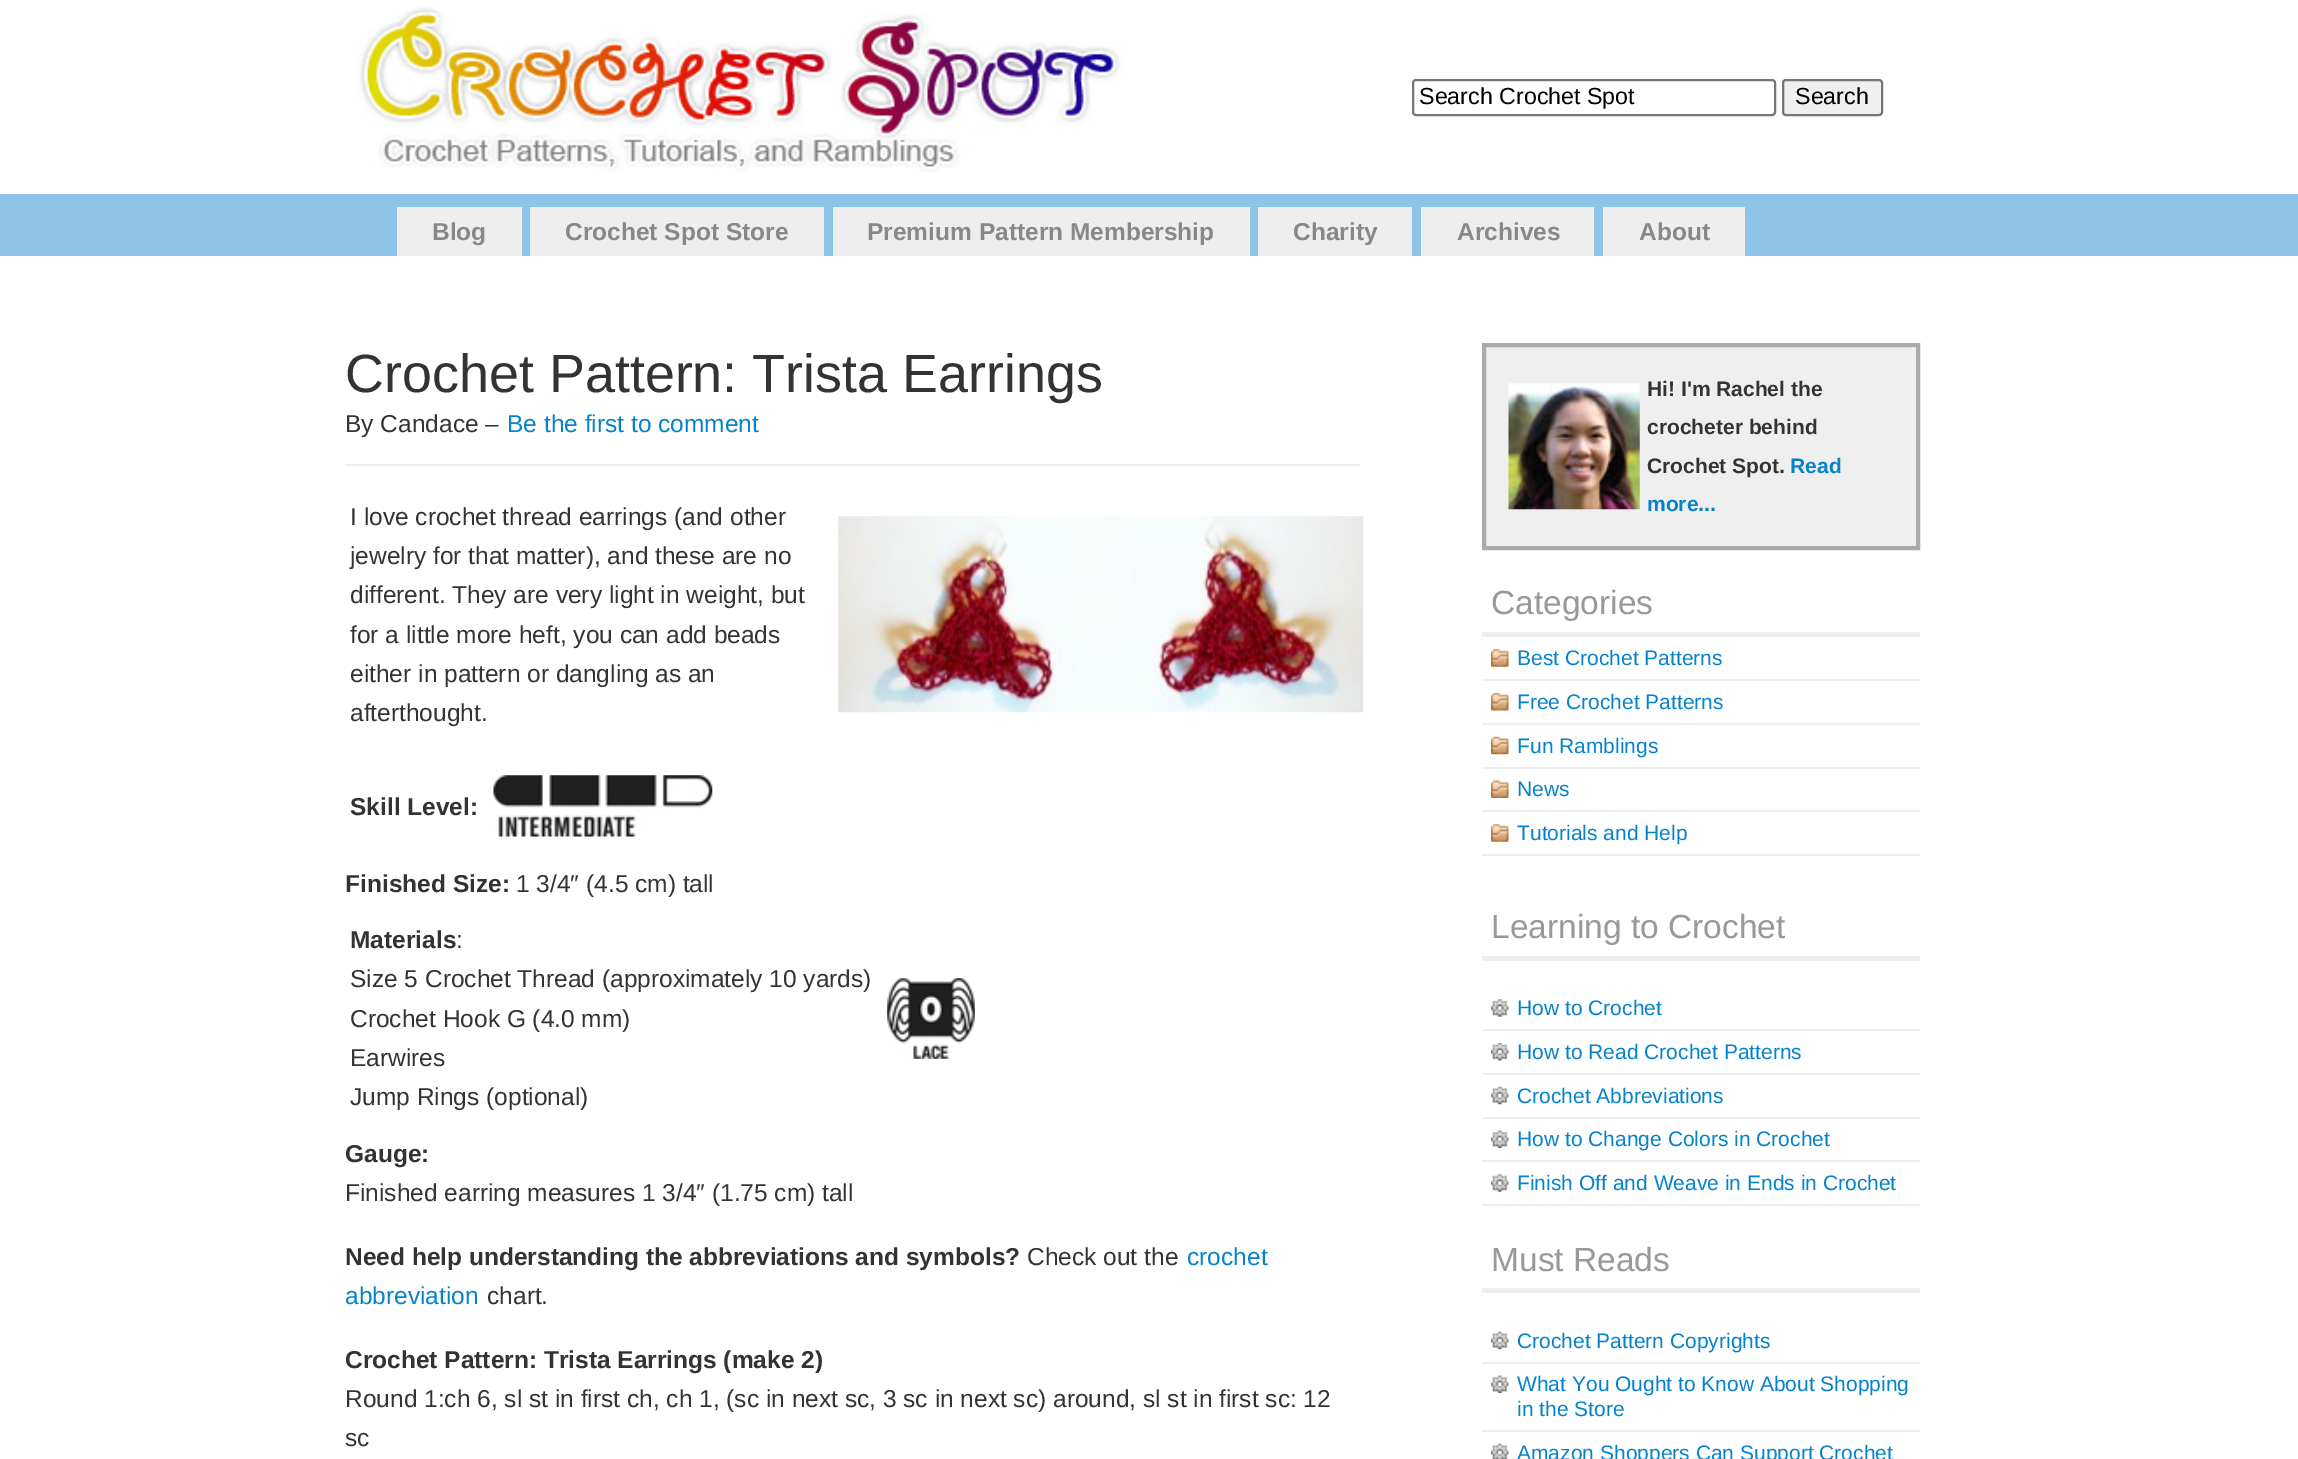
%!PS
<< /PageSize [2298 1459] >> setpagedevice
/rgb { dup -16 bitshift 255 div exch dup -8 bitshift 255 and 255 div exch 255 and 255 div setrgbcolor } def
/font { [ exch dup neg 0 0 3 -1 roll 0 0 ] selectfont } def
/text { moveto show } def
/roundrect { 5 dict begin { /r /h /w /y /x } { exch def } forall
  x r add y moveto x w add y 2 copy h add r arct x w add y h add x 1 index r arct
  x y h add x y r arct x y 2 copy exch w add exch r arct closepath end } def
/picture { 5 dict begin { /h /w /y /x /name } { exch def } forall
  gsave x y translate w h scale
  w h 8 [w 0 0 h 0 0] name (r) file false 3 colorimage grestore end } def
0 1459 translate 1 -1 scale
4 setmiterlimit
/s1 { /LiberationSans-Regular 23.25 font 16#000000 rgb } def
/s2 { /LiberationSans-Bold 24.5 font 16#888888 rgb } def
/s3 { /LiberationSans-Regular 53.9 font 16#333333 rgb } def
/s4 { /LiberationSans-Regular 24.5 font 16#333333 rgb } def
/s5 { /LiberationSans-Regular 24.5 font 16#0483CC rgb } def
/s6 { /LiberationSans-Bold 24.5 font 16#333333 rgb } def
/s7 { /LiberationSans-Bold 21 font 16#333333 rgb } def
/s8 { /LiberationSans-Bold 21 font 16#0483CC rgb } def
/s9 { /LiberationSans-Regular 33.5 font 16#999999 rgb } def
/s10 { /LiberationSans-Regular 21 font 16#0483CC rgb } def
16#FFFFFF rgb
0 0 2298 1459 rectfill
(pic1.raw) 355 7 770 165 picture
16#767676 rgb
2 setlinewidth
1413 80 362 35 3 roundrect stroke
s1
(Search Crochet Spot) 1419 104 text
16#EFEFEF rgb
1783 80 99 35 3 roundrect gsave fill grestore
16#767676 rgb
stroke
s1
(Search) 1795 104 text
16#8FC3E7 rgb
0 194 2298 62 rectfill
16#EEEEEE rgb
397 207 125 49 rectfill
s2
(Blog) 432 240 text
16#EEEEEE rgb
530 207 294 49 rectfill
s2
(Crochet Spot Store) 565 240 text
16#EEEEEE rgb
833 207 417 49 rectfill
s2
(Premium Pattern Membership) 867 240 text
16#EEEEEE rgb
1258 207 154 49 rectfill
s2
(Charity) 1293 240 text
16#EEEEEE rgb
1421 207 173 49 rectfill
s2
(Archives) 1457 240 text
16#EEEEEE rgb
1603 207 142 49 rectfill
s2
(About) 1639 240 text
s3
(Crochet Pattern: Trista Earrings) 345 392 text
s4
(By Candace –) 345 432 text
s5
(Be the first to comment) 507 432 text
16#EEEEEE rgb
345 464 1015 2 rectfill
s4
(I love crochet thread earrings \(and other) 350 525 text
(jewelry for that matter\), and these are no) 350 564 text
(different. They are very light in weight, but) 350 603 text
(for a little more heft, you can add beads) 350 643 text
(either in pattern or dangling as an) 350 682 text
(afterthought.) 350 721 text
(pic2.raw) 838 516 526 197 picture
s6
(Skill Level:) 350 815 text
(pic3.raw) 493 775 220 62 picture
(Finished Size:) 345 892 text
s4
(1 3/4″ \(4.5 cm\) tall) 516 892 text
s6
(Materials) 350 948 text
s4
(:) 456 948 text
(Size 5 Crochet Thread \(approximately 10 yards\)) 350 987 text
(Crochet Hook G \(4.0 mm\)) 350 1027 text
(Earwires) 350 1066 text
(Jump Rings \(optional\)) 350 1105 text
(pic4.raw) 887 978 88 81 picture
s6
(Gauge:) 345 1162 text
s4
(Finished earring measures 1 3/4″ \(1.75 cm\) tall) 345 1201 text
s6
(Need help understanding the abbreviations and symbols?) 345 1265 text
s4
(Check out the) 1027 1265 text
s5
(crochet) 1187 1265 text
(abbreviation) 345 1304 text
s4
(chart.) 487 1304 text
s6
(Crochet Pattern: Trista Earrings \(make 2\)) 345 1368 text
s4
(Round 1:ch 6, sl st in first ch, ch 1, \(sc in next sc, 3 sc in next sc\) around, sl st in first sc: 12) 345 1407 text
(sc) 345 1446 text
16#EFEFEF rgb
1484 345 moveto 1918 345 lineto 1918 548 lineto 1484 548 lineto closepath gsave fill grestore
16#AAAAAA rgb
4 setlinewidth
stroke
(pic5.raw) 1508 383 132 127 picture
s7
(Hi! I'm Rachel the) 1647 396 text
(crocheter behind) 1647 434 text
(Crochet Spot.) 1647 473 text
s8
(Read) 1790 473 text
(more...) 1647 511 text
16#EEEEEE rgb
1482 632 438 5 rectfill
s9
(Categories) 1491 614 text
(pic6.raw) 1491 649 18 18 picture
16#EEEEEE rgb
1482 679 438 2 rectfill
s10
(Best Crochet Patterns) 1517 665 text
(pic7.raw) 1491 693 18 18 picture
16#EEEEEE rgb
1482 723 438 2 rectfill
s10
(Free Crochet Patterns) 1517 709 text
(pic8.raw) 1491 736 18 19 picture
16#EEEEEE rgb
1482 767 438 2 rectfill
s10
(Fun Ramblings) 1517 753 text
(pic9.raw) 1491 780 18 18 picture
16#EEEEEE rgb
1482 810 438 2 rectfill
s10
(News) 1517 796 text
(pic6.raw) 1491 824 18 18 picture
16#EEEEEE rgb
1482 854 438 2 rectfill
s10
(Tutorials and Help) 1517 840 text
16#EEEEEE rgb
1482 956 438 5 rectfill
s9
(Learning to Crochet) 1491 938 text
(pic10.raw) 1491 999 18 18 picture
16#EEEEEE rgb
1482 1029 438 2 rectfill
s10
(How to Crochet) 1517 1015 text
(pic11.raw) 1491 1043 18 18 picture
16#EEEEEE rgb
1482 1073 438 2 rectfill
s10
(How to Read Crochet Patterns) 1517 1059 text
(pic12.raw) 1491 1086 18 19 picture
16#EEEEEE rgb
1482 1117 438 2 rectfill
s10
(Crochet Abbreviations) 1517 1103 text
(pic13.raw) 1491 1130 18 18 picture
16#EEEEEE rgb
1482 1160 438 2 rectfill
s10
(How to Change Colors in Crochet) 1517 1146 text
(pic10.raw) 1491 1174 18 18 picture
16#EEEEEE rgb
1482 1204 438 2 rectfill
s10
(Finish Off and Weave in Ends in Crochet) 1517 1190 text
16#EEEEEE rgb
1482 1288 438 5 rectfill
s9
(Must Reads) 1491 1271 text
(pic12.raw) 1491 1331 18 19 picture
16#EEEEEE rgb
1482 1362 438 2 rectfill
s10
(Crochet Pattern Copyrights) 1517 1348 text
(pic13.raw) 1491 1375 18 18 picture
16#EEEEEE rgb
1482 1430 438 2 rectfill
s10
(What You Ought to Know About Shopping) 1517 1391 text
(in the Store) 1517 1416 text
(pic14.raw) 1491 1443 18 16 picture
(Amazon Shoppers Can Support Crochet) 1517 1460 text
showpage
